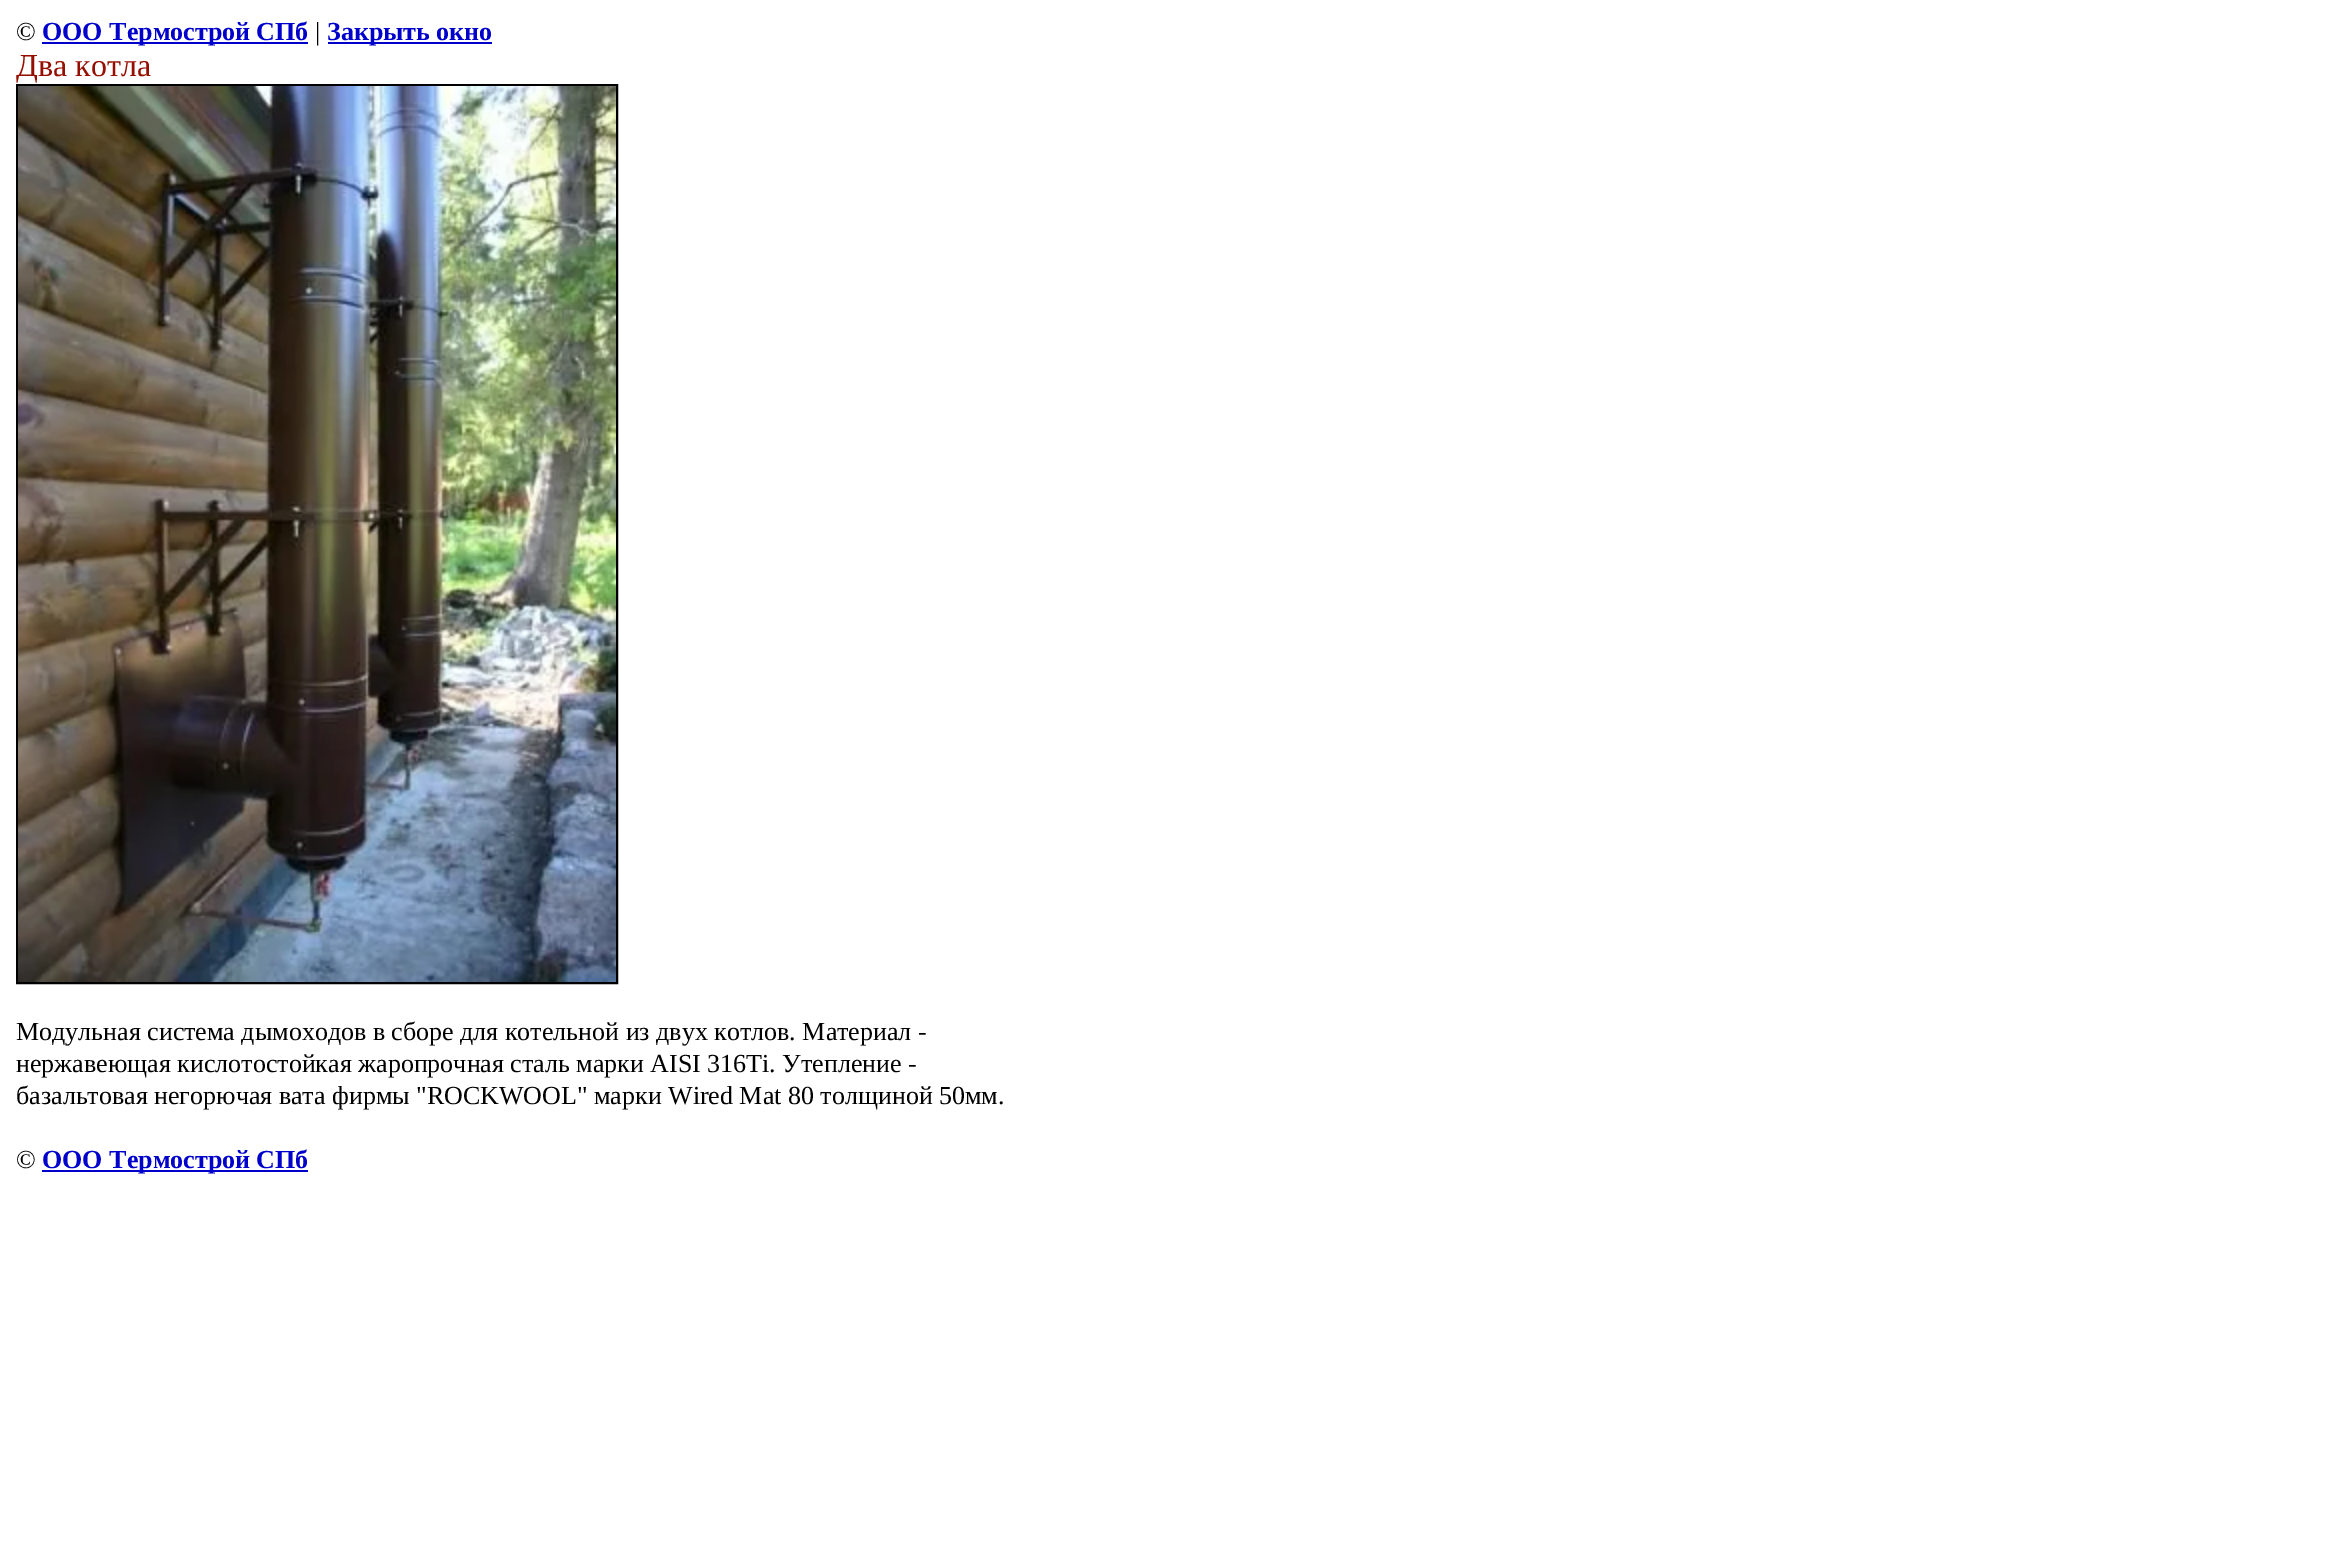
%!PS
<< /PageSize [2338 1547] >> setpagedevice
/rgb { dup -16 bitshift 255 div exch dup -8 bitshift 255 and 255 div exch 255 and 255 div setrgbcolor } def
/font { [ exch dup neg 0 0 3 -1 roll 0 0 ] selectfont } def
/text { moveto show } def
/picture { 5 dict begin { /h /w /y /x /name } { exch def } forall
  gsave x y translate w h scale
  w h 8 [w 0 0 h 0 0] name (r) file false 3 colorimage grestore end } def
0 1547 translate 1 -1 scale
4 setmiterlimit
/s1 { /LiberationSerif-Regular 26 font 16#000000 rgb } def
/s2 { /LiberationSerif-Bold 26 font 16#0000CC rgb } def
/s3 { /LiberationSerif-Regular 32 font 16#960E00 rgb } def
16#FFFFFF rgb
0 0 2338 1547 rectfill
s1
(©) 16 40 text
16#0000CC rgb
42 42 266 2 rectfill
s2
(ООО Термострой СПб) 42 40 text
s1
(|) 315 40 text
16#0000CC rgb
328 42 164 2 rectfill
s2
(Закрыть окно) 327 40 text
s3
(Два котла) 16 76 text
16#000000 rgb
2 setlinewidth
17 85 600 898 rectstroke
(pic1.raw) 18 86 598 896 picture
s1
(Модульная система дымоходов в сборе для котельной из двух котлов. Материал -) 16 1040 text
(нержавеющая кислотостойкая жаропрочная сталь марки AISI 316Ti. Утепление -) 16 1072 text
(базальтовая негорючая вата фирмы "ROCKWOOL" марки Wired Mat 80 толщиной 50мм.) 16 1104 text
(©) 16 1168 text
16#0000CC rgb
42 1170 266 2 rectfill
s2
(ООО Термострой СПб) 42 1168 text
showpage
